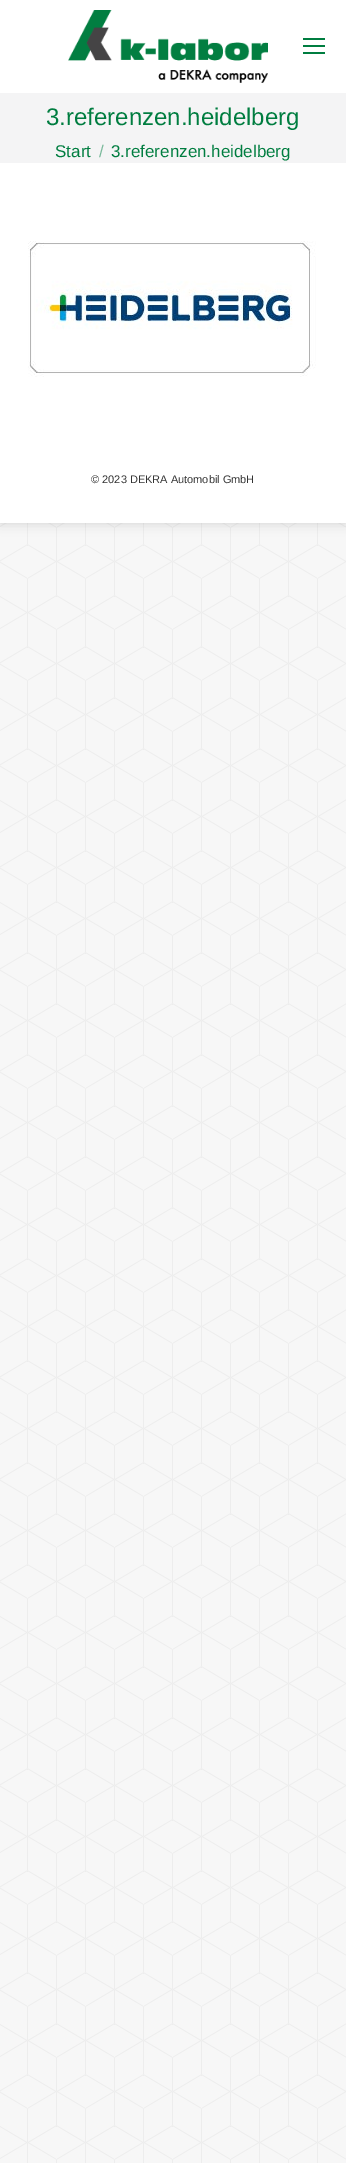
%!PS
<< /PageSize [346 2163] /PageUsesTransparency true >> setpagedevice
/rgb { dup -16 bitshift 255 div exch dup -8 bitshift 255 and 255 div exch 255 and 255 div setrgbcolor } def
/font { [ exch dup neg 0 0 3 -1 roll 0 0 ] selectfont } def
/text { moveto show } def
/alpha { dup .setfillconstantalpha .setstrokeconstantalpha } def
/roundrect { 5 dict begin { /r /h /w /y /x } { exch def } forall
  x r add y moveto x w add y 2 copy h add r arct x w add y h add x 1 index r arct
  x y h add x y r arct x y 2 copy exch w add exch r arct closepath end } def
/shadow { 12 dict begin { /a /b /q /h /w /y /x } { exch def } forall gsave /was 0 def
  9 -2 -9 { dup b mul 4 div /e exch def 1 sub .425 mul 2.718 exch exp 1 add a .99 .min exch div /now exch def
    1 1 now sub 1 was sub div sub alpha /was now def
    w h .min e 2 mul add 0 gt { x e sub y e sub w e 2 mul add h e 2 mul add
      q e add b .6 mul add w h .min 2 div e add .min 0 .max roundrect fill } if } for grestore end } def
/picture { 5 dict begin { /h /w /y /x /name } { exch def } forall
  gsave x y translate w h scale
  w h 8 [w 0 0 h 0 0] name (r) file false 3 colorimage grestore end } def
0 .pushpdf14devicefilter
0 2163 translate 1 -1 scale
4 setmiterlimit
/s1 { /LiberationSans-Regular 24 font 16#007D40 rgb } def
/s2 { /LiberationSans-Regular 17 font 16#007D40 rgb } def
/s3 { /LiberationSans-Regular 17 font 16#7AB99B rgb } def
/s4 { /LiberationSans-Regular 11 font 16#333333 rgb } def
16#F7F7F7 rgb
0 0 346 2163 rectfill
(pic1.raw) 0 523 346 1640 picture
16#000000 rgb
0 0 346 523 0 6 0.15 shadow
16#FFFFFF rgb
0 0 346 523 rectfill
(pic2.raw) 68 10 200 73 picture
16#007D40 rgb
303 38 22 2 rectfill
303 45 22 2 rectfill
303 52 22 2 rectfill
16#F4F4F5 rgb
0 93 346 70 rectfill
s1
(3.referenzen.heidelberg) 46 125 text
s2
(Start) 55 157 text
s3
(/) 99 157 text
s2
(3.referenzen.heidelberg) 111 157 text
(pic3.raw) 28 241 288 136 picture
s4
(© 2023 DEKRA Automobil GmbH) 91 483 text
.poppdf14devicefilter showpage
